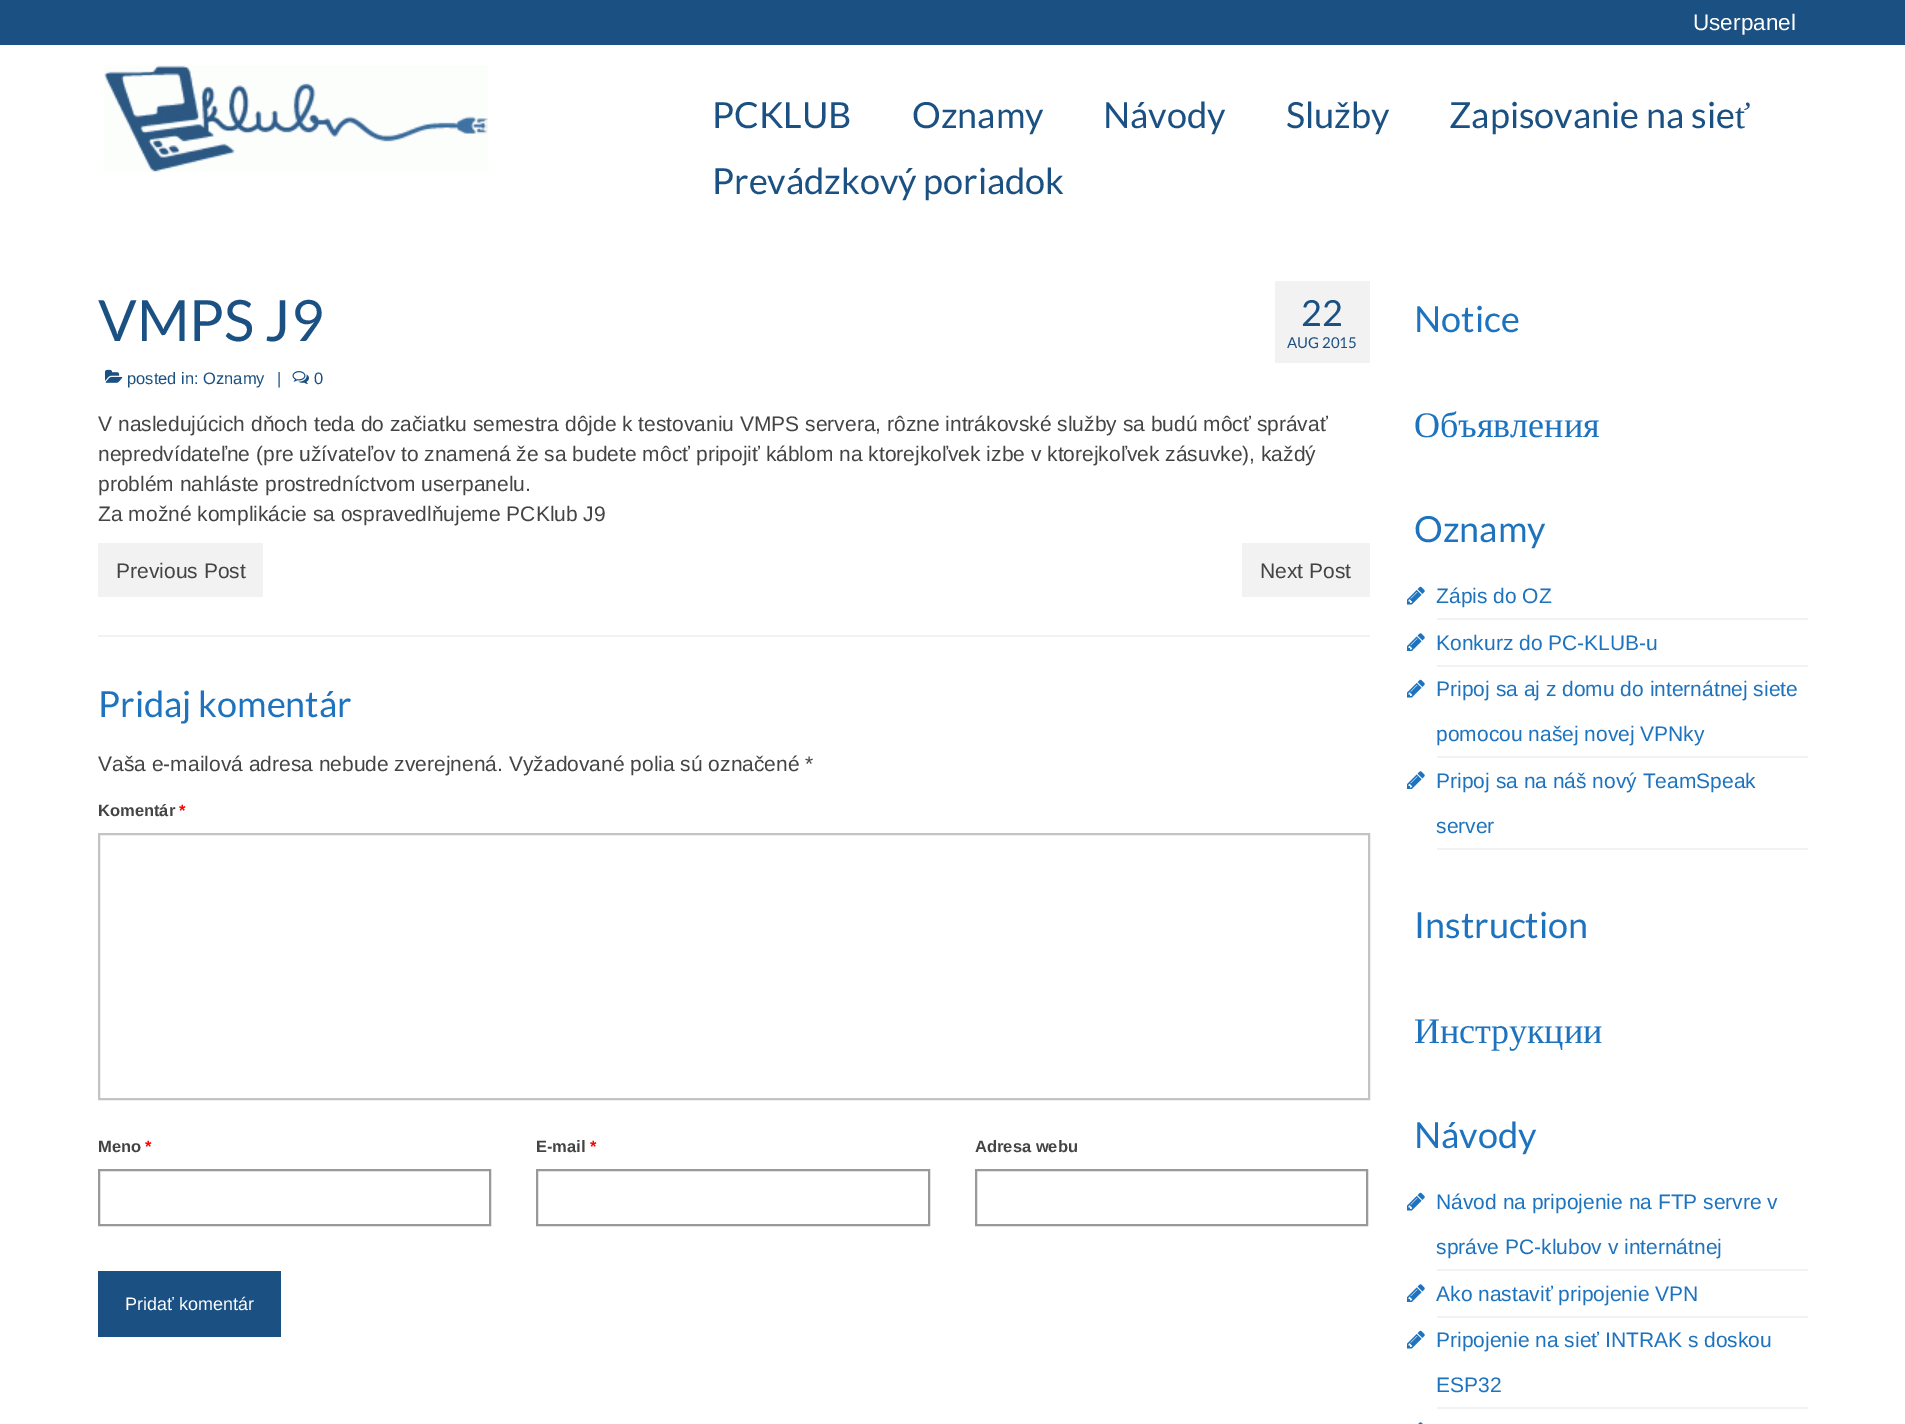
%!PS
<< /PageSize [1905 1424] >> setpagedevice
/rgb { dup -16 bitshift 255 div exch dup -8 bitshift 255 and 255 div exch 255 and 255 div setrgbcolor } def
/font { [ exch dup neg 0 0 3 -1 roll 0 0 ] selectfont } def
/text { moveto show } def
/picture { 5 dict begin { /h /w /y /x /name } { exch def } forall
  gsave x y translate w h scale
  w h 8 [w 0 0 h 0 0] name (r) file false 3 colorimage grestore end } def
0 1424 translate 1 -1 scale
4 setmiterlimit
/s1 { /LiberationSans-Regular 22.5 font 16#FFFFFE rgb } def
/s2 { /Lato-Regular 36 font 16#1B5082 rgb } def
/s3 { /LiberationSerif-Regular 36 font 16#1B5082 rgb } def
/s4 { /Lato-Regular 57 font 16#1B5082 rgb } def
/s5 { /LiberationSans-Regular 16.5 font 16#1B5082 rgb } def
/s6 { /Lato-Regular 15 font 16#1B5082 rgb } def
/s7 { /LiberationSans-Regular 21 font 16#444444 rgb } def
/s8 { /Lato-Regular 36 font 16#1E73BE rgb } def
/s9 { /LiberationSans-Bold 16.5 font 16#444444 rgb } def
/s10 { /LiberationSans-Bold 16.5 font 16#FF0000 rgb } def
/s11 { /LiberationSans-Regular 18 font 16#FFFFFE rgb } def
/s12 { /LiberationSerif-Regular 36 font 16#1E73BE rgb } def
/s13 { /LiberationSans-Regular 21 font 16#1E73BE rgb } def
16#FFFFFF rgb
0 0 1905 1424 rectfill
16#1B5082 rgb
0 0 1905 45 rectfill
s1
(Userpanel) 1693 30 text
(pic1.raw) 104 65 384 107 picture
s2
(PCKLUB) 712 128 text
(Oznamy) 912 128 text
(Návody) 1103 128 text
(Služby) 1286 128 text
(Zapisovanie na sie) 1449 128 text
s3
(ť) 1735 128 text
s2
(Prevádzkový poriadok) 712 194 text
s4
(VMPS J9) 98 341 text
(pic2.raw) 105 369 18 14 picture
s5
(posted in: Oznamy) 127 384 text
(|) 277 384 text
(pic3.raw) 292 371 17 13 picture
(0) 314 384 text
16#F2F2F2 rgb
1275 281 95 82 rectfill
s2
(22) 1301 326 text
s6
(AUG 2015) 1287 348 text
s7
(V nasledujúcich dňoch teda do začiatku semestra dôjde k testovaniu VMPS servera, rôzne intrákovské služby sa budú môcť správať) 98 431 text
(nepredvídateľne \(pre užívateľov to znamená že sa budete môcť pripojiť káblom na ktorejkoľvek izbe v ktorejkoľvek zásuvke\), každý) 98 461 text
(problém nahláste prostredníctvom userpanelu.) 98 491 text
(Za možné komplikácie sa ospravedlňujeme PCKlub J9) 98 521 text
16#F2F2F2 rgb
98 635 1272 2 rectfill
98 543 165 54 rectfill
s7
(Previous Post) 116 578 text
16#F2F2F2 rgb
1242 543 128 54 rectfill
s7
(Next Post) 1260 578 text
s8
(Pridaj komentár) 98 717 text
s7
(Vaša e-mailová adresa nebude zverejnená. Vyžadované polia sú označené *) 98 771 text
s9
(Komentár) 98 816 text
s10
(*) 179 816 text
16#C3C3C3 rgb
2 setlinewidth
99 834 1270 265 rectstroke
s9
(Meno) 98 1152 text
s10
(*) 145 1152 text
16#999999 rgb
99 1170 391 55 rectstroke
s9
(E-mail) 536 1152 text
s10
(*) 590 1152 text
16#999999 rgb
537 1170 392 55 rectstroke
s9
(Adresa webu) 975 1152 text
16#999999 rgb
976 1170 391 55 rectstroke
16#1B5082 rgb
98 1271 183 66 rectfill
s11
(Pridať komentár) 125 1310 text
s8
(Notice) 1414 332 text
s12
(Объявления) 1414 437 text
s8
(Oznamy) 1414 542 text
16#F2F2F2 rgb
1437 618 371 2 rectfill
(pic4.raw) 1407 586 18 19 picture
s13
(Zápis do OZ) 1436 603 text
16#F2F2F2 rgb
1437 665 371 2 rectfill
(pic5.raw) 1407 633 18 18 picture
s13
(Konkurz do PC-KLUB-u) 1436 650 text
16#F2F2F2 rgb
1437 756 371 2 rectfill
(pic4.raw) 1407 679 18 19 picture
s13
(Pripoj sa aj z domu do internátnej siete) 1436 696 text
(pomocou našej novej VPNky) 1436 741 text
16#F2F2F2 rgb
1437 848 371 2 rectfill
(pic5.raw) 1407 771 18 18 picture
s13
(Pripoj sa na náš nový TeamSpeak) 1436 788 text
(server) 1436 833 text
s8
(Instruction) 1414 938 text
s12
(Инструкции) 1414 1043 text
s8
(Návody) 1414 1148 text
16#F2F2F2 rgb
1437 1269 371 2 rectfill
(pic4.raw) 1407 1192 18 19 picture
s13
(Návod na pripojenie na FTP servre v) 1436 1209 text
(správe PC-klubov v internátnej) 1436 1254 text
16#F2F2F2 rgb
1437 1316 371 2 rectfill
(pic5.raw) 1407 1284 18 18 picture
s13
(Ako nastaviť pripojenie VPN) 1436 1301 text
16#F2F2F2 rgb
1437 1407 371 2 rectfill
(pic4.raw) 1407 1330 18 19 picture
s13
(Pripojenie na sieť INTRAK s doskou) 1436 1347 text
(ESP32) 1436 1392 text
(pic6.raw) 1418 1422 5 2 picture
showpage
